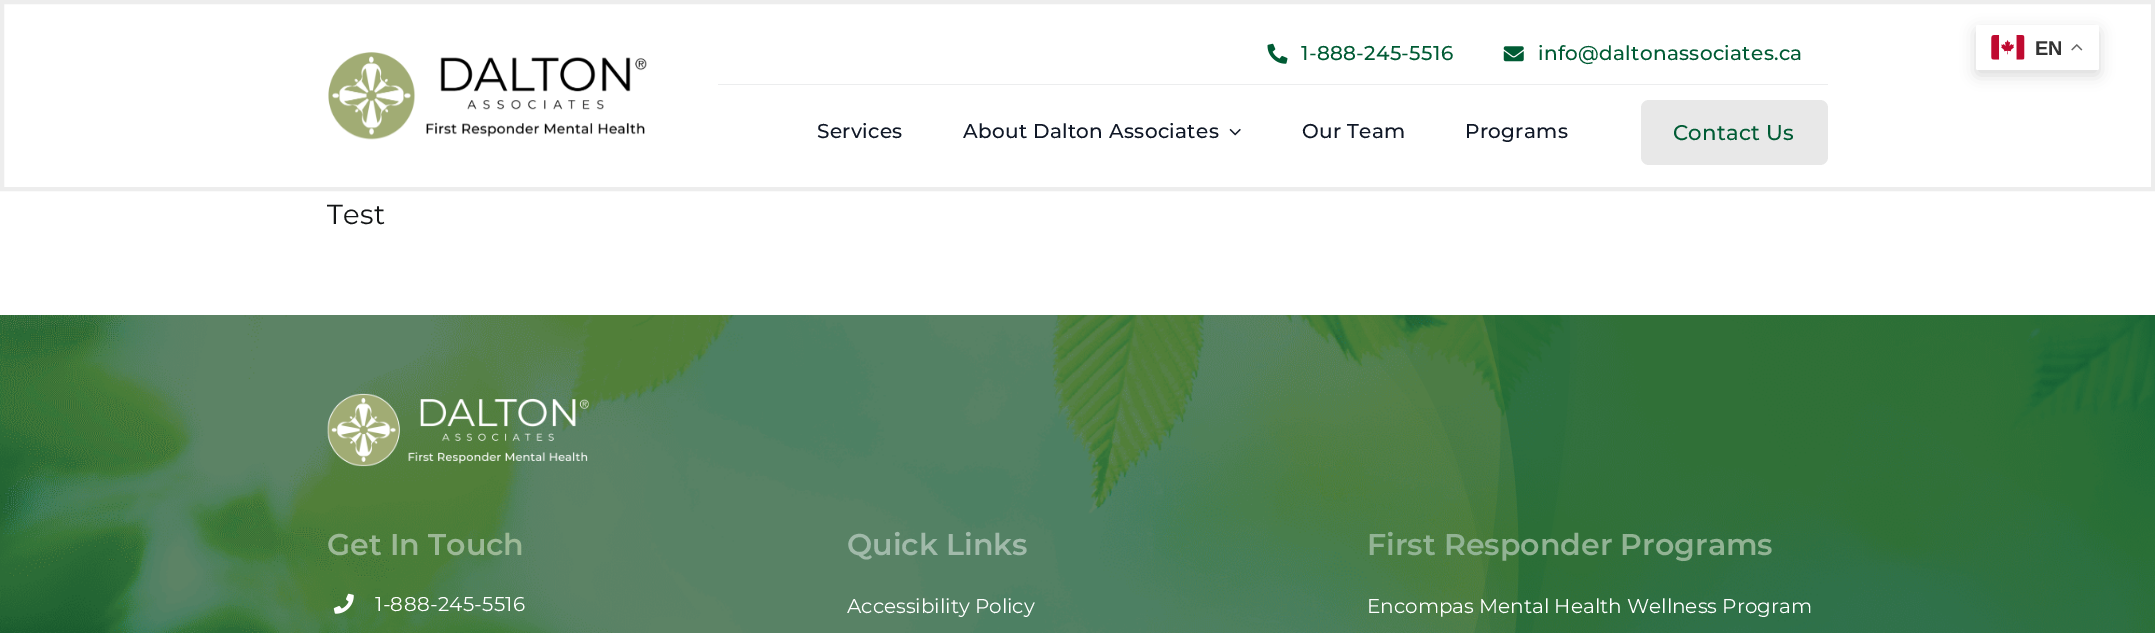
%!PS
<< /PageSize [2155 633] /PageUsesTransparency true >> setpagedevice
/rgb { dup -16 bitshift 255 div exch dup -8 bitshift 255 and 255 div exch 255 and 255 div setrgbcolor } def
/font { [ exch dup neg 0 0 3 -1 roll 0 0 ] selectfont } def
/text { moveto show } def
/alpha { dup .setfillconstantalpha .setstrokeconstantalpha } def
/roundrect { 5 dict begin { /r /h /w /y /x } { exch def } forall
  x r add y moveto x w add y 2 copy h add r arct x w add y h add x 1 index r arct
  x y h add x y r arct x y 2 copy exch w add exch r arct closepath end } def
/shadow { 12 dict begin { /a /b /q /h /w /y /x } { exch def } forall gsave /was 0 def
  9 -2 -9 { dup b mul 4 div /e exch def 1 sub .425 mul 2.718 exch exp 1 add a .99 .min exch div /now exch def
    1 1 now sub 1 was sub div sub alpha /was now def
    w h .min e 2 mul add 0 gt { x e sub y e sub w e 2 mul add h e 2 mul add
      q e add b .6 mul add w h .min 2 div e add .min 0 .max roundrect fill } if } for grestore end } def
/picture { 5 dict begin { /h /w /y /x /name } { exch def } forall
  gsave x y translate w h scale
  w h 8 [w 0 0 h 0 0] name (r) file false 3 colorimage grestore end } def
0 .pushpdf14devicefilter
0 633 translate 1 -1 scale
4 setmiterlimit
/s1 { /Montserrat-SemiBold 30 font 16#9CB896 rgb } def
/s2 { /Montserrat-SemiBold 30 font 16#A1BAAA rgb } def
/s3 { /Montserrat-Regular 20 font 16#FFFFFF rgb } def
/s4 { /Montserrat-SemiBold 30 font 16#92B394 rgb } def
/s5 { /LiberationSans-Bold 20 font 16#333333 rgb } def
16#FFFFFF rgb
0 0 2155 633 rectfill
16#EDEDED rgb
4 setlinewidth
2 2 2151 187 rectstroke
(pic1.raw) 328 52 319 88 picture
16#ECEDEE rgb
718 84 1110 1 rectfill
(pic2.raw) 1267 43 21 21 picture
/Montserrat-Medium 20 font
16#005B34 rgb
1301 60 moveto 0.3 0 (1-888-245-5516) ashow
(pic3.raw) 1503 46 21 16 picture
1538 60 moveto 0.3 0 (info@daltonassociates.ca) ashow
16#101827 rgb
817 138 moveto 0.3 0 (Services) ashow
963 138 moveto 0.3 0 (About Dalton Associates) ashow
(pic4.raw) 1229 128 12 8 picture
1302 138 moveto 0.3 0 (Our Team) ashow
1465 138 moveto 0.3 0 (Programs) ashow
16#E8E8E8 rgb
1641 100 187 65 8 roundrect fill
/Montserrat-Medium 21.25 font
16#005B34 rgb
1673 140 moveto 0.25 0 (Contact Us) ashow
/Montserrat-Regular 27.5 font
16#141617 rgb
327 224 moveto 0.3 0 (Test) ashow
(pic5.raw) 0 315 2155 318 picture
(pic6.raw) 1379 315 776 318 picture
(pic7.raw) 327 393 262 74 picture
s1
(Get In Touch) 327 555 text
(pic8.raw) 333 593 21 21 picture
/Montserrat-Regular 20 font
16#FFFFFF rgb
375 611 moveto 0.3 0 (1-888-245-5516) ashow
s2
(Quick Links) 847 555 text
s3
(Accessibility Policy) 847 613 text
s4
(First Responder Programs) 1367 555 text
s3
(Encompas Mental Health Wellness Program) 1367 613 text
16#000000 rgb
1976 30 123 45 2 7.5 0.15 shadow
16#FFFFFF rgb
1976 25 123 45 2 roundrect fill
(pic9.raw) 1991 35 34 25 picture
s5
(EN) 2035 55 text
(pic10.raw) 2071 44 12 7 picture
.poppdf14devicefilter showpage
